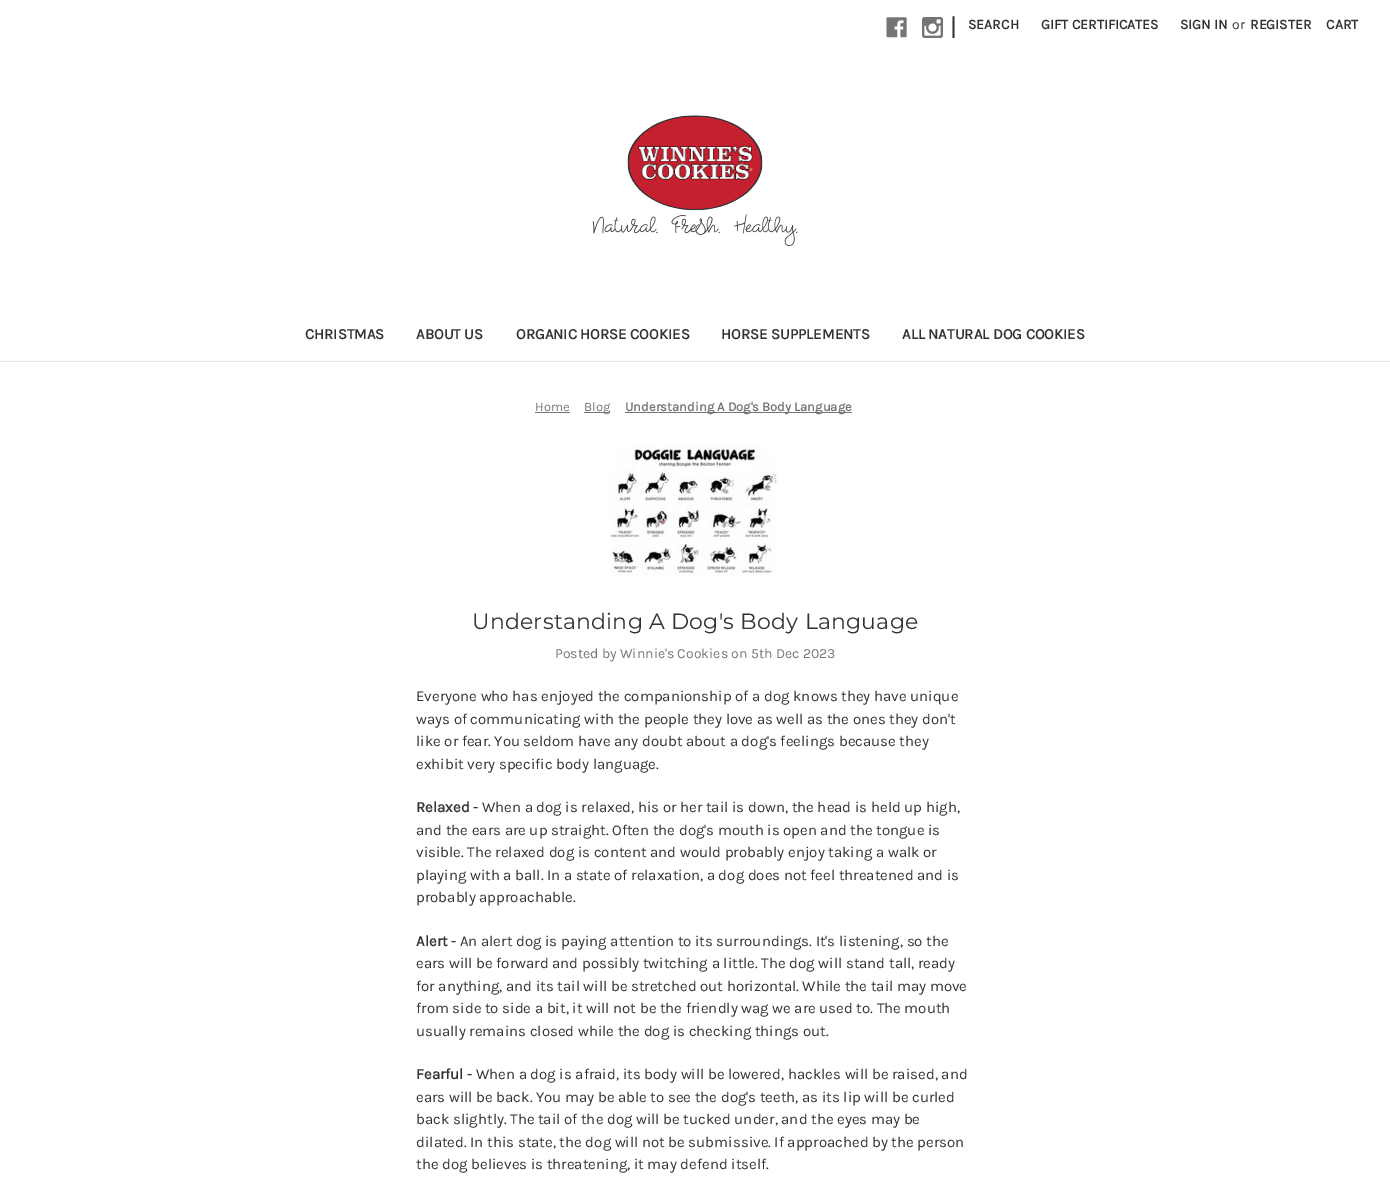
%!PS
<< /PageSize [1390 1177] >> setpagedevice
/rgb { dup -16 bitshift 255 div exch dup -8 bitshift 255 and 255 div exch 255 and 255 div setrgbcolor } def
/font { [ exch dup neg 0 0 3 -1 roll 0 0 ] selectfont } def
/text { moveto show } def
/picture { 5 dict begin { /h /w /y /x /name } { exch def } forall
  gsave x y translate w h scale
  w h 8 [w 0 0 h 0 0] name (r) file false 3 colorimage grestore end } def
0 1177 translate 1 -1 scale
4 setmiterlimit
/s1 { /Karla-Regular 25 font 16#333333 rgb } def
/s2 { /Karla-Bold 14 font 16#333333 rgb } def
/s3 { /Karla-Regular 14 font 16#333333 rgb } def
/s4 { /Karla-Bold 15 font 16#333333 rgb } def
/s5 { /Karla-Regular 13 font 16#757575 rgb } def
/s6 { /Karla-Bold 13 font 16#757575 rgb } def
/s7 { /Karla-Regular 14 font 16#757575 rgb } def
/s8 { /Karla-Regular 15 font 16#333333 rgb } def
16#FFFFFF rgb
0 0 1390 1177 rectfill
16#E5E5E5 rgb
0 361 1390 1 rectfill
(pic1.raw) 886 17 21 21 picture
(pic2.raw) 922 17 21 21 picture
s1
(|) 950 35 text
s2
(SEARCH) 968 29 text
(GIFT CERTIFICATES) 1041 29 text
(SIGN IN) 1180 29 text
s3
(or) 1232 29 text
s2
(REGISTER) 1250 29 text
(CART) 1326 29 text
(pic3.raw) 592 115 206 132 picture
s4
(CHRISTMAS) 305 339 text
(ABOUT US) 416 339 text
(ORGANIC HORSE COOKIES) 516 339 text
(HORSE SUPPLEMENTS) 721 339 text
(ALL NATURAL DOG COOKIES) 902 339 text
s5
(Home) 535 411 text
535 412 35 1 rectfill
584 412 26 1 rectfill
(Blog) 584 411 text
625 412 227 1 rectfill
s6
(Understanding A Dog's Body Language) 625 411 text
(pic4.raw) 610 446 170 131 picture
/Montserrat-Regular 22 font
16#333333 rgb
472 629 moveto 0.25 0 (Understanding A Dog's Body Language) ashow
s7
(Posted by Winnie's Cookies on 5th Dec 2023) 555 658 text
s8
(Everyone who has enjoyed the companionship of a dog knows they have unique) 416 701 text
(ways of communicating with the people they love as well as the ones they don't) 416 724 text
(like or fear. You seldom have any doubt about a dog's feelings because they) 416 746 text
(exhibit very specific body language.) 416 769 text
s4
(Relaxed) 416 812 text
s8
(- When a dog is relaxed, his or her tail is down, the head is held up high,) 473 812 text
(and the ears are up straight. Often the dog's mouth is open and the tongue is) 416 835 text
(visible. The relaxed dog is content and would probably enjoy taking a walk or) 416 857 text
(playing with a ball. In a state of relaxation, a dog does not feel threatened and is) 416 880 text
(probably approachable.) 416 902 text
s4
(Alert) 416 946 text
s8
(- An alert dog is paying attention to its surroundings. It's listening, so the) 451 946 text
(ears will be forward and possibly twitching a little. The dog will stand tall, ready) 416 968 text
(for anything, and its tail will be stretched out horizontal. While the tail may move) 416 991 text
(from side to side a bit, it will not be the friendly wag we are used to. The mouth) 416 1013 text
(usually remains closed while the dog is checking things out.) 416 1036 text
s4
(Fearful) 416 1079 text
s8
(- When a dog is afraid, its body will be lowered, hackles will be raised, and) 467 1079 text
(ears will be back. You may be able to see the dog's teeth, as its lip will be curled) 416 1102 text
(back slightly. The tail of the dog will be tucked under, and the eyes may be) 416 1124 text
(dilated. In this state, the dog will not be submissive. If approached by the person) 416 1147 text
(the dog believes is threatening, it may defend itself.) 416 1169 text
showpage
